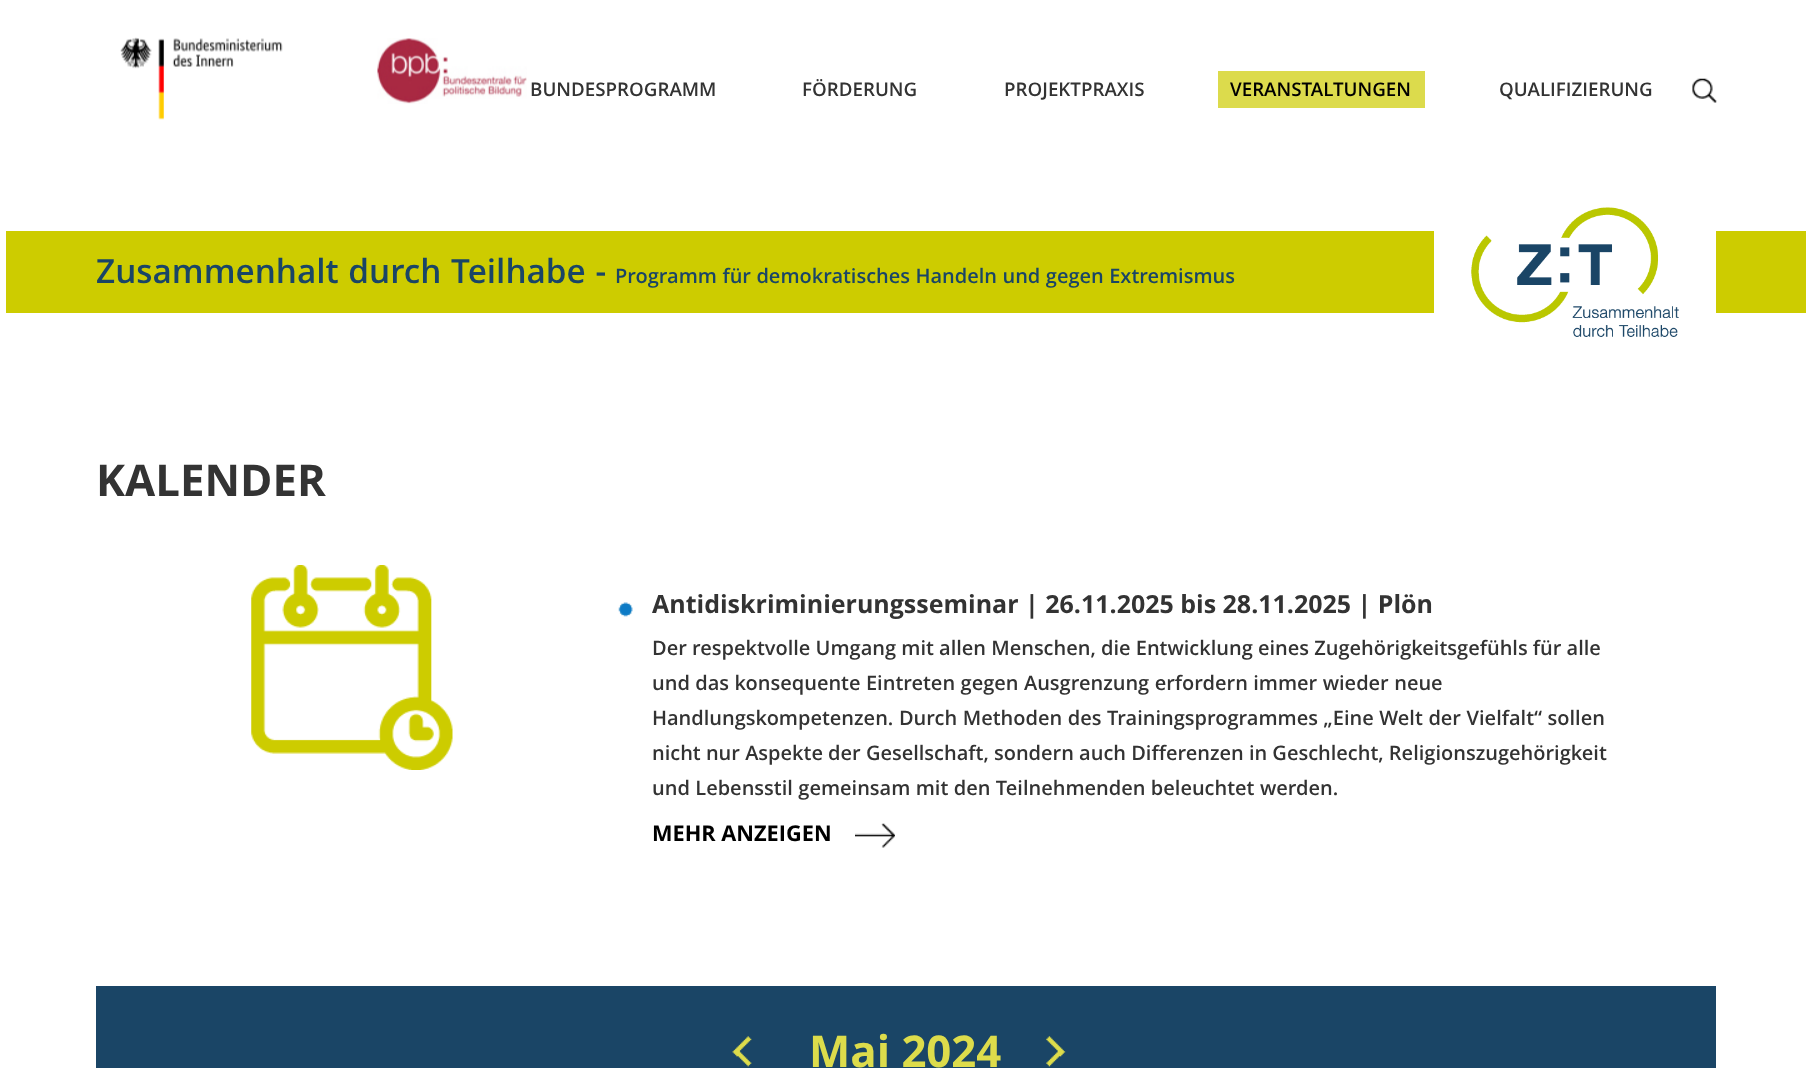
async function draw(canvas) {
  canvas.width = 1811
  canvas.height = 1068
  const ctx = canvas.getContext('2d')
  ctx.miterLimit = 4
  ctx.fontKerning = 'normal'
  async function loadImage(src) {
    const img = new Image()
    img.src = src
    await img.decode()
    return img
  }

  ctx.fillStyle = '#fff'
  ctx.fillRect(0, 0, 1811, 1068)
  ctx.drawImage(await loadImage('image0.png'), 120, 37, 163, 83)
  ctx.drawImage(await loadImage('image1.png'), 377, 38, 150, 66)
  ctx.font = '600 18.75px Open Sans'
  ctx.fillStyle = '#333'
  ctx.fillText('BUNDESPROGRAMM', 530, 96)
  ctx.fillText('FÖRDERUNG', 802, 96)
  ctx.fillText('PROJEKTPRAXIS', 1004, 96)
  ctx.fillStyle = '#dcdb4c'
  ctx.fillRect(1218, 71, 207, 37)
  ctx.fillStyle = '#000'
  ctx.fillText('VERANSTALTUNGEN', 1230, 96)
  ctx.fillStyle = '#333'
  ctx.fillText('QUALIFIZIERUNG', 1499, 96)
  ctx.drawImage(await loadImage('image2.png'), 1692, 78, 25, 25)
  ctx.fillStyle = '#cdcc00'
  ctx.fillRect(6, 231, 1800, 82)
  ctx.wordSpacing = '1px'
  ctx.font = '600 33.3px Open Sans'
  ctx.fillStyle = '#1a4566'
  ctx.fillText('Zusammenhalt durch Teilhabe -', 96, 283)
  ctx.wordSpacing = '0.25px'
  ctx.font = '600 20px Open Sans'
  ctx.fillText('Programm für demokratisches Handeln und gegen Extremismus', 615, 283)
  ctx.fillStyle = '#fff'
  ctx.fillRect(1434, 231, 282, 82)
  ctx.drawImage(await loadImage('image3.png'), 1471, 207, 208, 130)
  ctx.wordSpacing = '0px'
  ctx.font = 'bold 43.75px Open Sans'
  ctx.fillStyle = '#333'
  ctx.fillText('KALENDER', 96, 496)
  ctx.drawImage(await loadImage('image4.png'), 251, 565, 202, 205)
  ctx.drawImage(await loadImage('image5.png'), 618, 602, 15, 15)
  ctx.font = 'bold 25px Open Sans'
  ctx.fillText('Antidiskriminierungsseminar | 26.11.2025 bis 28.11.2025 | Plön', 652, 613)
  ctx.font = '600 20px Open Sans'
  ctx.fillText('Der respektvolle Umgang mit allen Menschen, die Entwicklung eines Zugehörigkeitsgefühls für alle', 652, 655)
  ctx.wordSpacing = '0.25px'
  ctx.fillText('und das konsequente Eintreten gegen Ausgrenzung erfordern immer wieder neue', 652, 690)
  ctx.wordSpacing = '0.4px'
  ctx.fillText('Handlungskompetenzen. Durch Methoden des Trainingsprogrammes „Eine Welt der Vielfalt“ sollen', 652, 725)
  ctx.wordSpacing = '0px'
  ctx.fillText('nicht nur Aspekte der Gesellschaft, sondern auch Differenzen in Geschlecht, Religionszugehörigkeit', 652, 760)
  ctx.wordSpacing = '0.25px'
  ctx.fillText('und Lebensstil gemeinsam mit den Teilnehmenden beleuchtet werden.', 652, 795)
  ctx.wordSpacing = '0px'
  ctx.font = 'bold 21.75px Open Sans'
  ctx.fillStyle = '#000'
  ctx.fillText('MEHR ANZEIGEN', 652, 841)
  ctx.drawImage(await loadImage('image6.png'), 855, 823, 40, 25)
  ctx.fillStyle = '#1a4566'
  ctx.fillRect(96, 986, 1620, 82)
  ctx.drawImage(await loadImage('image7.png'), 732, 1036, 20, 31)
  ctx.font = 'bold 43.75px Open Sans'
  ctx.fillStyle = '#dddc4b'
  ctx.fillText('Mai 2024', 809, 1067)
  ctx.drawImage(await loadImage('image8.png'), 1046, 1036, 20, 31)
}

draw(document.querySelector('canvas'))
